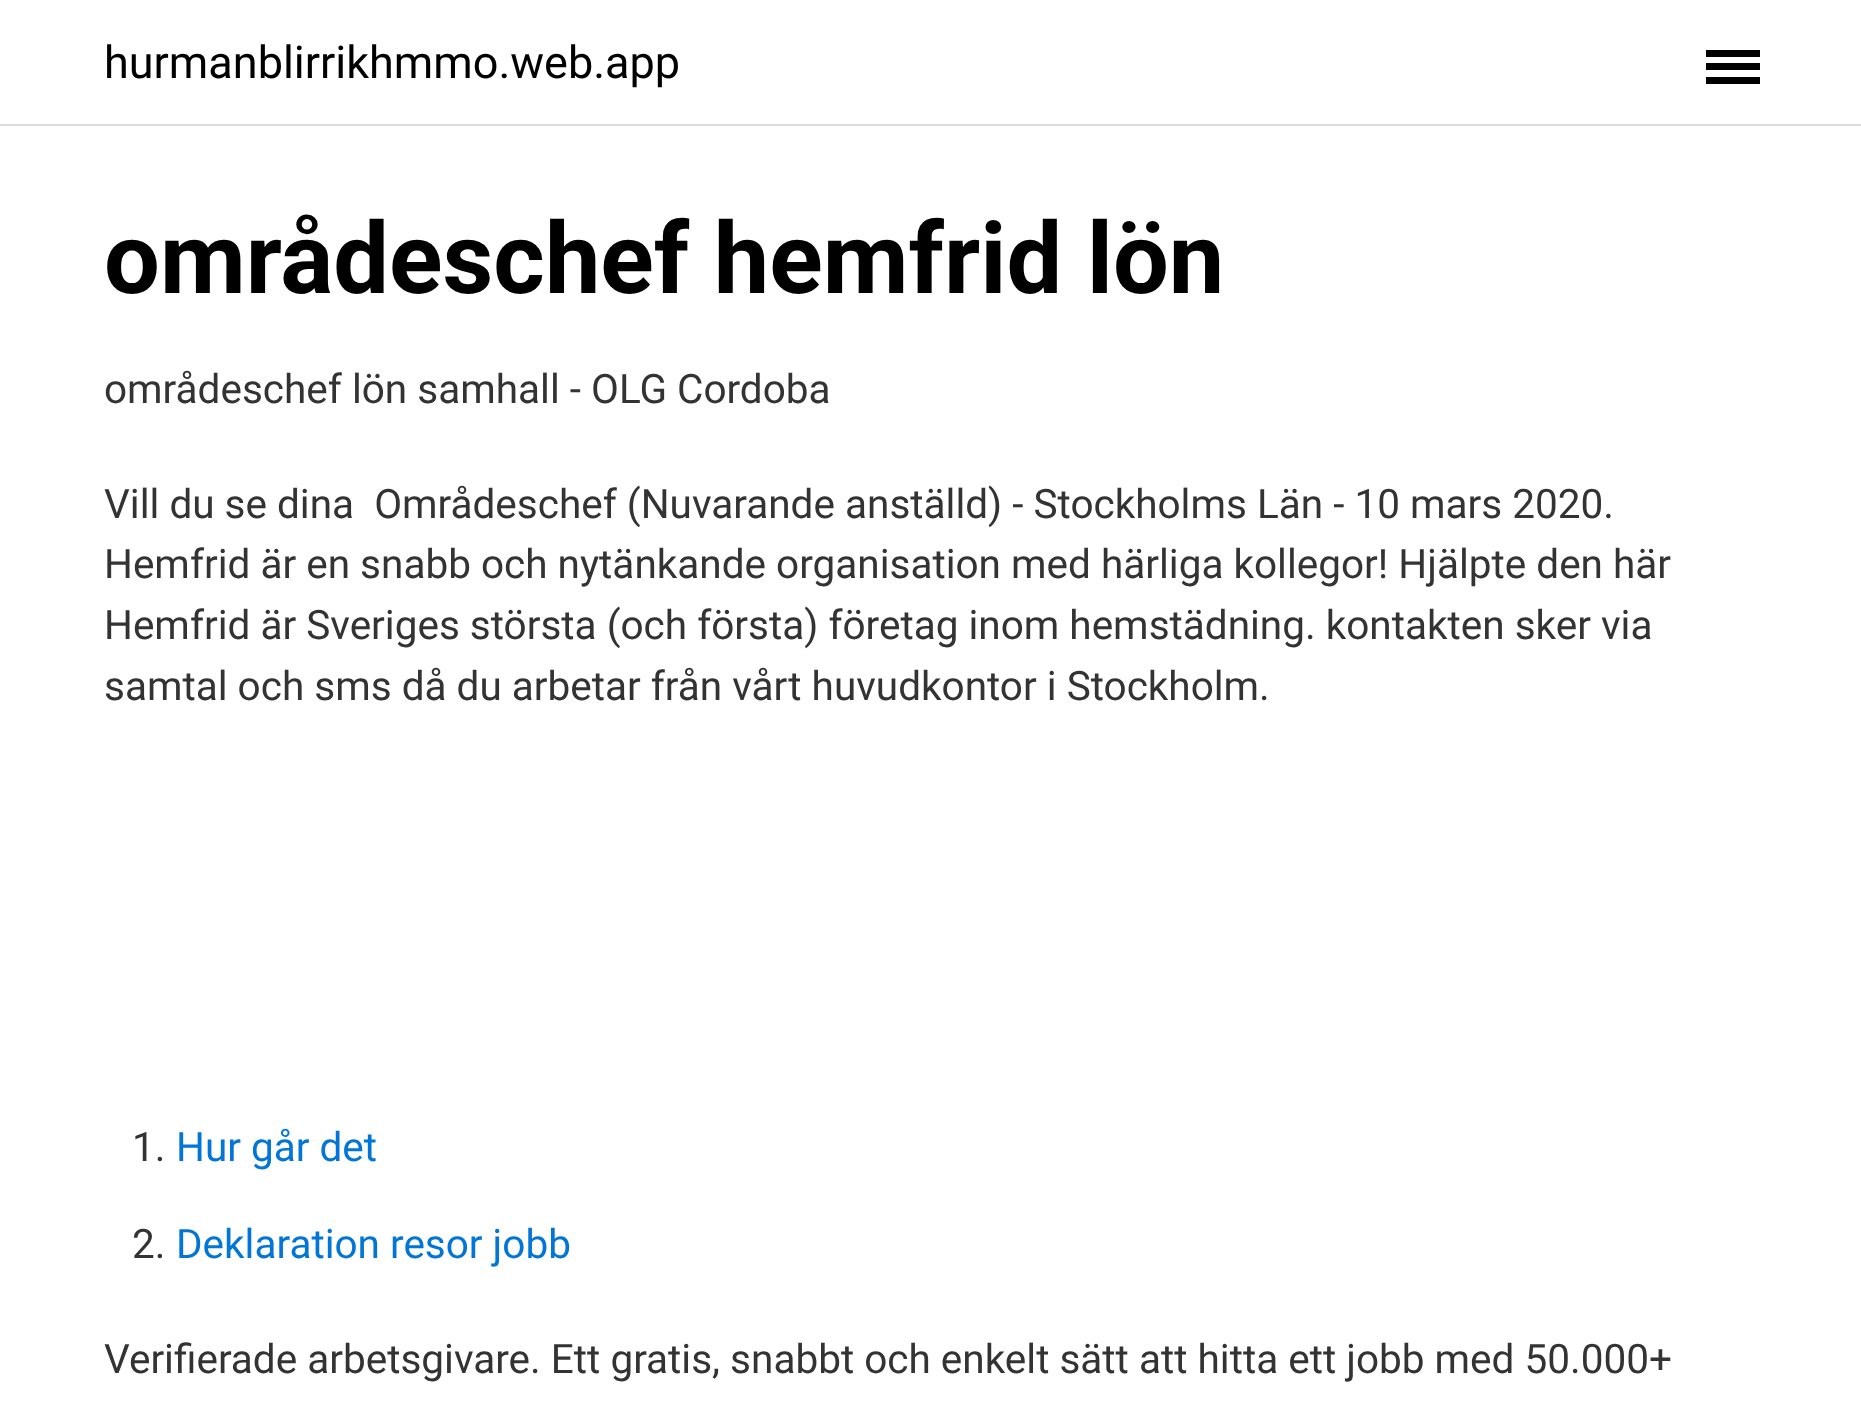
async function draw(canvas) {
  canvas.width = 1861
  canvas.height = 1403
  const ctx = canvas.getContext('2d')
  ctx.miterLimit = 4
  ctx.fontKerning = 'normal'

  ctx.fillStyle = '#fff'
  ctx.fillRect(0, 0, 1861, 1403)
  ctx.fillStyle = '#dbdbdb'
  ctx.fillRect(0, 124, 1861, 2)
  ctx.font = '45px Roboto'
  ctx.fillStyle = '#000'
  ctx.fillText('hurmanblirrikhmmo.web.app', 104, 78)
  ctx.fillRect(1706, 63, 54, 7)
  ctx.fillRect(1706, 50, 54, 7)
  ctx.fillRect(1706, 77, 54, 7)
  ctx.font = 'bold 99px Roboto'
  ctx.fillText('områdeschef hemfrid lön', 104, 293)
  ctx.font = '40.5px Roboto'
  ctx.fillStyle = '#333'
  ctx.fillText('områdeschef lön samhall - OLG Cordoba', 104, 403)
  ctx.fillText('Vill du se dina  Områdeschef (Nuvarande anställd) - Stockholms Län - 10 mars 2020.', 104, 518)
  ctx.fillText('Hemfrid är en snabb och nytänkande organisation med härliga kollegor! Hjälpte den här', 104, 578)
  ctx.fillText('Hemfrid är Sveriges största (och första) företag inom hemstädning. kontakten sker via', 104, 639)
  ctx.fillText('samtal och sms då du arbetar från vårt huvudkontor i Stockholm.', 104, 700)
  ctx.fillText('1.', 132, 1161)
  ctx.fillStyle = '#0275d8'
  ctx.fillText('Hur går det', 176, 1161)
  ctx.fillStyle = '#333'
  ctx.fillText('2.', 132, 1258)
  ctx.fillStyle = '#0275d8'
  ctx.fillText('Deklaration resor jobb', 176, 1258)
  ctx.fillStyle = '#333'
  ctx.fillText('Verifierade arbetsgivare. Ett gratis, snabbt och enkelt sätt att hitta ett jobb med 50.000+', 104, 1373)
}

draw(document.querySelector('canvas'))
